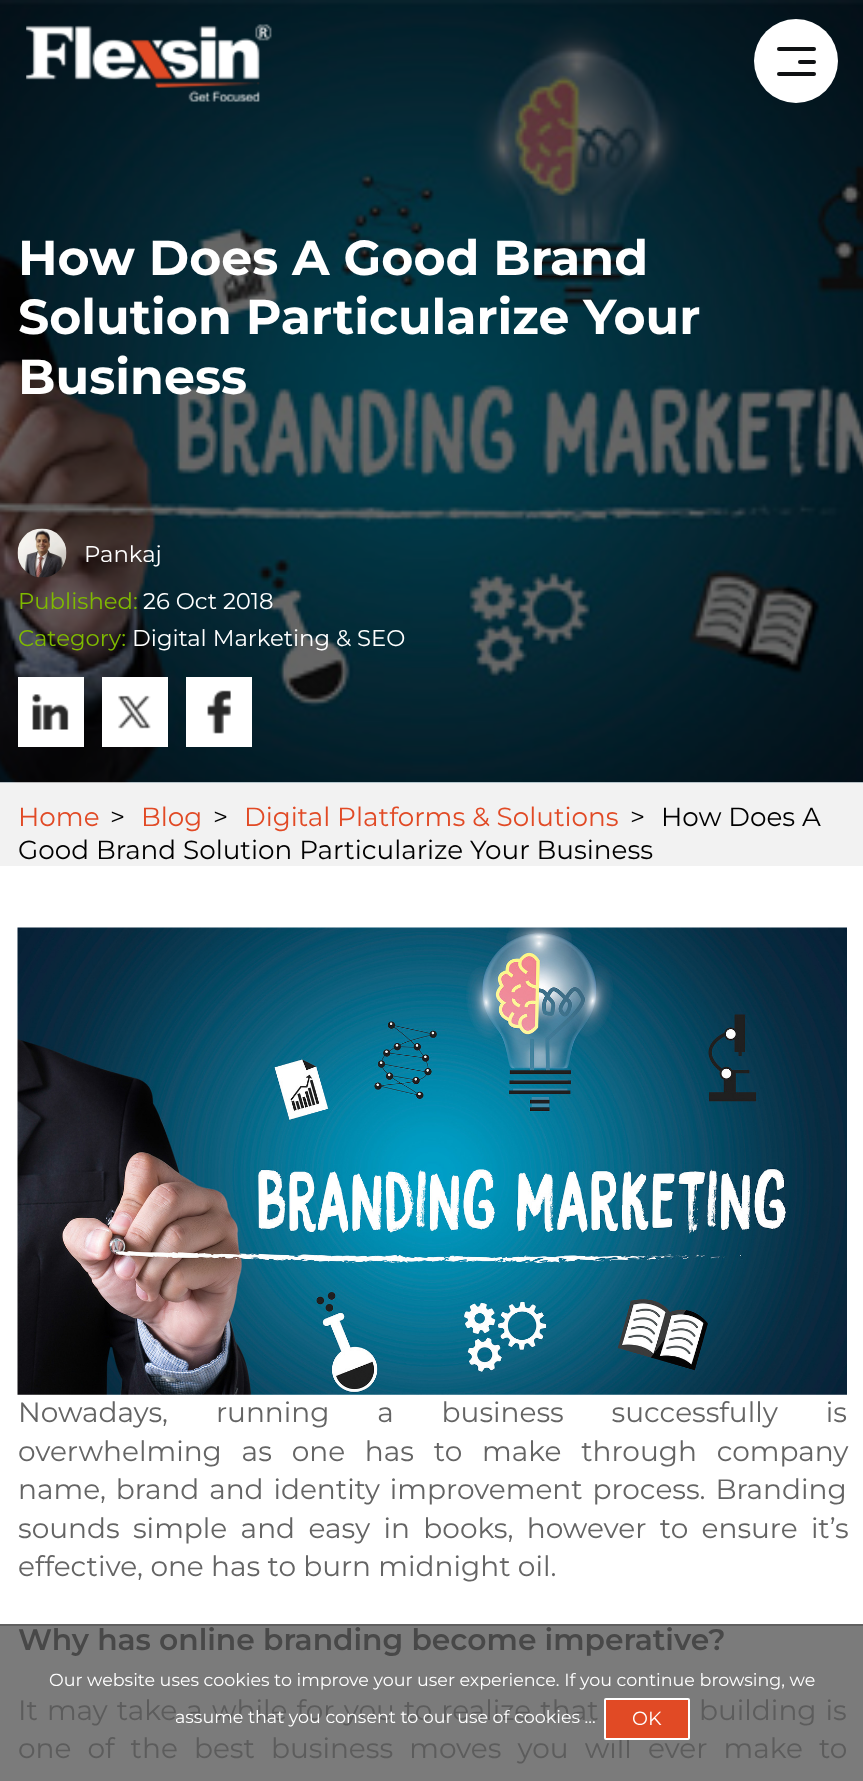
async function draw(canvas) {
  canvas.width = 863
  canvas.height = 1781
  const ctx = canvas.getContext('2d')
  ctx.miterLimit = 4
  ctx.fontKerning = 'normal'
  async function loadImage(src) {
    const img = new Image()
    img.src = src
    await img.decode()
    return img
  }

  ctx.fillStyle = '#fff'
  ctx.fillRect(0, 0, 863, 1781)
  ctx.fillStyle = '#7b7b7b'
  ctx.fillRect(0, 1626, 863, 155)
  ctx.fillStyle = '#f2f2f2'
  ctx.fillRect(0, 782, 863, 84)
  ctx.drawImage(await loadImage('image1.png'), 0, 0, 863, 783)
  ctx.drawImage(await loadImage('image0.png'), 26, 24, 246, 78)
  ctx.fillStyle = '#fff'
  ctx.beginPath()
  ctx.arc(796, 61, 42, 0, 2 * Math.PI)
  ctx.fill()
  ctx.fillStyle = '#0f1113'
  ctx.beginPath()
  ctx.roundRect(777, 47, 39, 4, 2)
  ctx.fill()
  ctx.beginPath()
  ctx.roundRect(798, 60, 18, 4, 2)
  ctx.fill()
  ctx.beginPath()
  ctx.roundRect(777, 72, 39, 4, 2)
  ctx.fill()
  ctx.font = 'bold 49px Montserrat'
  ctx.fillStyle = '#fff'
  ctx.fillText('How Does A Good Brand', 18, 275)
  ctx.fillText('Solution Particularize Your', 18, 334)
  ctx.fillText('Business', 18, 394)
  ctx.drawImage(await loadImage('image2.png'), 17, 528, 50, 50)
  ctx.font = '22.75px Montserrat'
  ctx.fillText('Pankaj', 84, 562)
  ctx.fillStyle = '#7fba00'
  ctx.fillText('Published:', 18, 609)
  ctx.fillStyle = '#fff'
  ctx.fillText('26 Oct 2018', 143, 609)
  ctx.fillStyle = '#7fba00'
  ctx.fillText('Category:', 18, 646)
  ctx.fillStyle = '#fff'
  ctx.fillText('Digital Marketing & SEO', 132, 646)
  ctx.fillRect(18, 677, 66, 70)
  ctx.drawImage(await loadImage('image3.png'), 32, 694, 37, 36)
  ctx.fillRect(102, 677, 66, 70)
  ctx.drawImage(await loadImage('image4.png'), 118, 695, 33, 34)
  ctx.fillRect(186, 677, 66, 70)
  ctx.drawImage(await loadImage('image5.png'), 207, 690, 24, 44)
  ctx.font = '26.25px Montserrat'
  ctx.fillStyle = '#e14a25'
  ctx.fillText('Home', 18, 826)
  ctx.fillStyle = '#000'
  ctx.fillText('>', 110, 826)
  ctx.fillStyle = '#e14a25'
  ctx.fillText('Blog', 141, 826)
  ctx.fillStyle = '#000'
  ctx.fillText('>', 213, 826)
  ctx.fillStyle = '#e14a25'
  ctx.fillText('Digital Platforms & Solutions', 244, 826)
  ctx.fillStyle = '#000'
  ctx.fillText('>', 630, 826)
  ctx.fillText('How Does A', 661, 826)
  ctx.fillText('Good Brand Solution Particularize Your Business', 18, 859)
  ctx.drawImage(await loadImage('image6.png'), 17, 927, 830, 468)
  ctx.wordSpacing = '40.5px'
  ctx.font = '28px Montserrat'
  ctx.fillStyle = '#646464'
  ctx.fillText('Nowadays, running a business successfully is', 18, 1422)
  ctx.wordSpacing = '12.5px'
  ctx.fillText('overwhelming as one has to make through company', 18, 1461)
  ctx.wordSpacing = '2.5px'
  ctx.fillText('name, brand and identity improvement process. Branding', 18, 1499)
  ctx.wordSpacing = '6px'
  ctx.fillText('sounds simple and easy in books, however to ensure it’s', 18, 1538)
  ctx.wordSpacing = '0px'
  ctx.fillText('effective, one has to burn midnight oil.', 18, 1576)
  ctx.font = '600 29.75px Montserrat'
  ctx.fillStyle = '#484848'
  ctx.fillText('Why has online branding become imperative?', 18, 1650)
  ctx.wordSpacing = '1.75px'
  ctx.font = '28px Montserrat'
  ctx.fillStyle = '#5c5c5c'
  ctx.fillText('It may take a while for you to realize that', 18, 1720)
  ctx.fillText('building is', 699, 1720)
  ctx.wordSpacing = '8.75px'
  ctx.fillText('one of the best business moves you will ever make to', 18, 1758)
  ctx.fillStyle = '#616161'
  ctx.fillRect(0, 1624, 863, 2)
  ctx.wordSpacing = '0px'
  ctx.font = '17.5px Montserrat'
  ctx.fillStyle = '#fff'
  ctx.fillText('Our website uses cookies to improve your user experience. If you continue browsing, we', 49, 1686)
  ctx.fillText('assume that you consent to our use of cookies ...', 175, 1723)
  ctx.fillStyle = '#e14a25'
  ctx.beginPath()
  ctx.roundRect(605, 1699, 84, 40, 1)
  ctx.fill()
  ctx.strokeStyle = '#fff'
  ctx.lineWidth = 2
  ctx.stroke()
  ctx.font = '19px Montserrat'
  ctx.fillStyle = '#fff'
  ctx.fillText('OK', 632, 1725)
}

draw(document.querySelector('canvas'))
